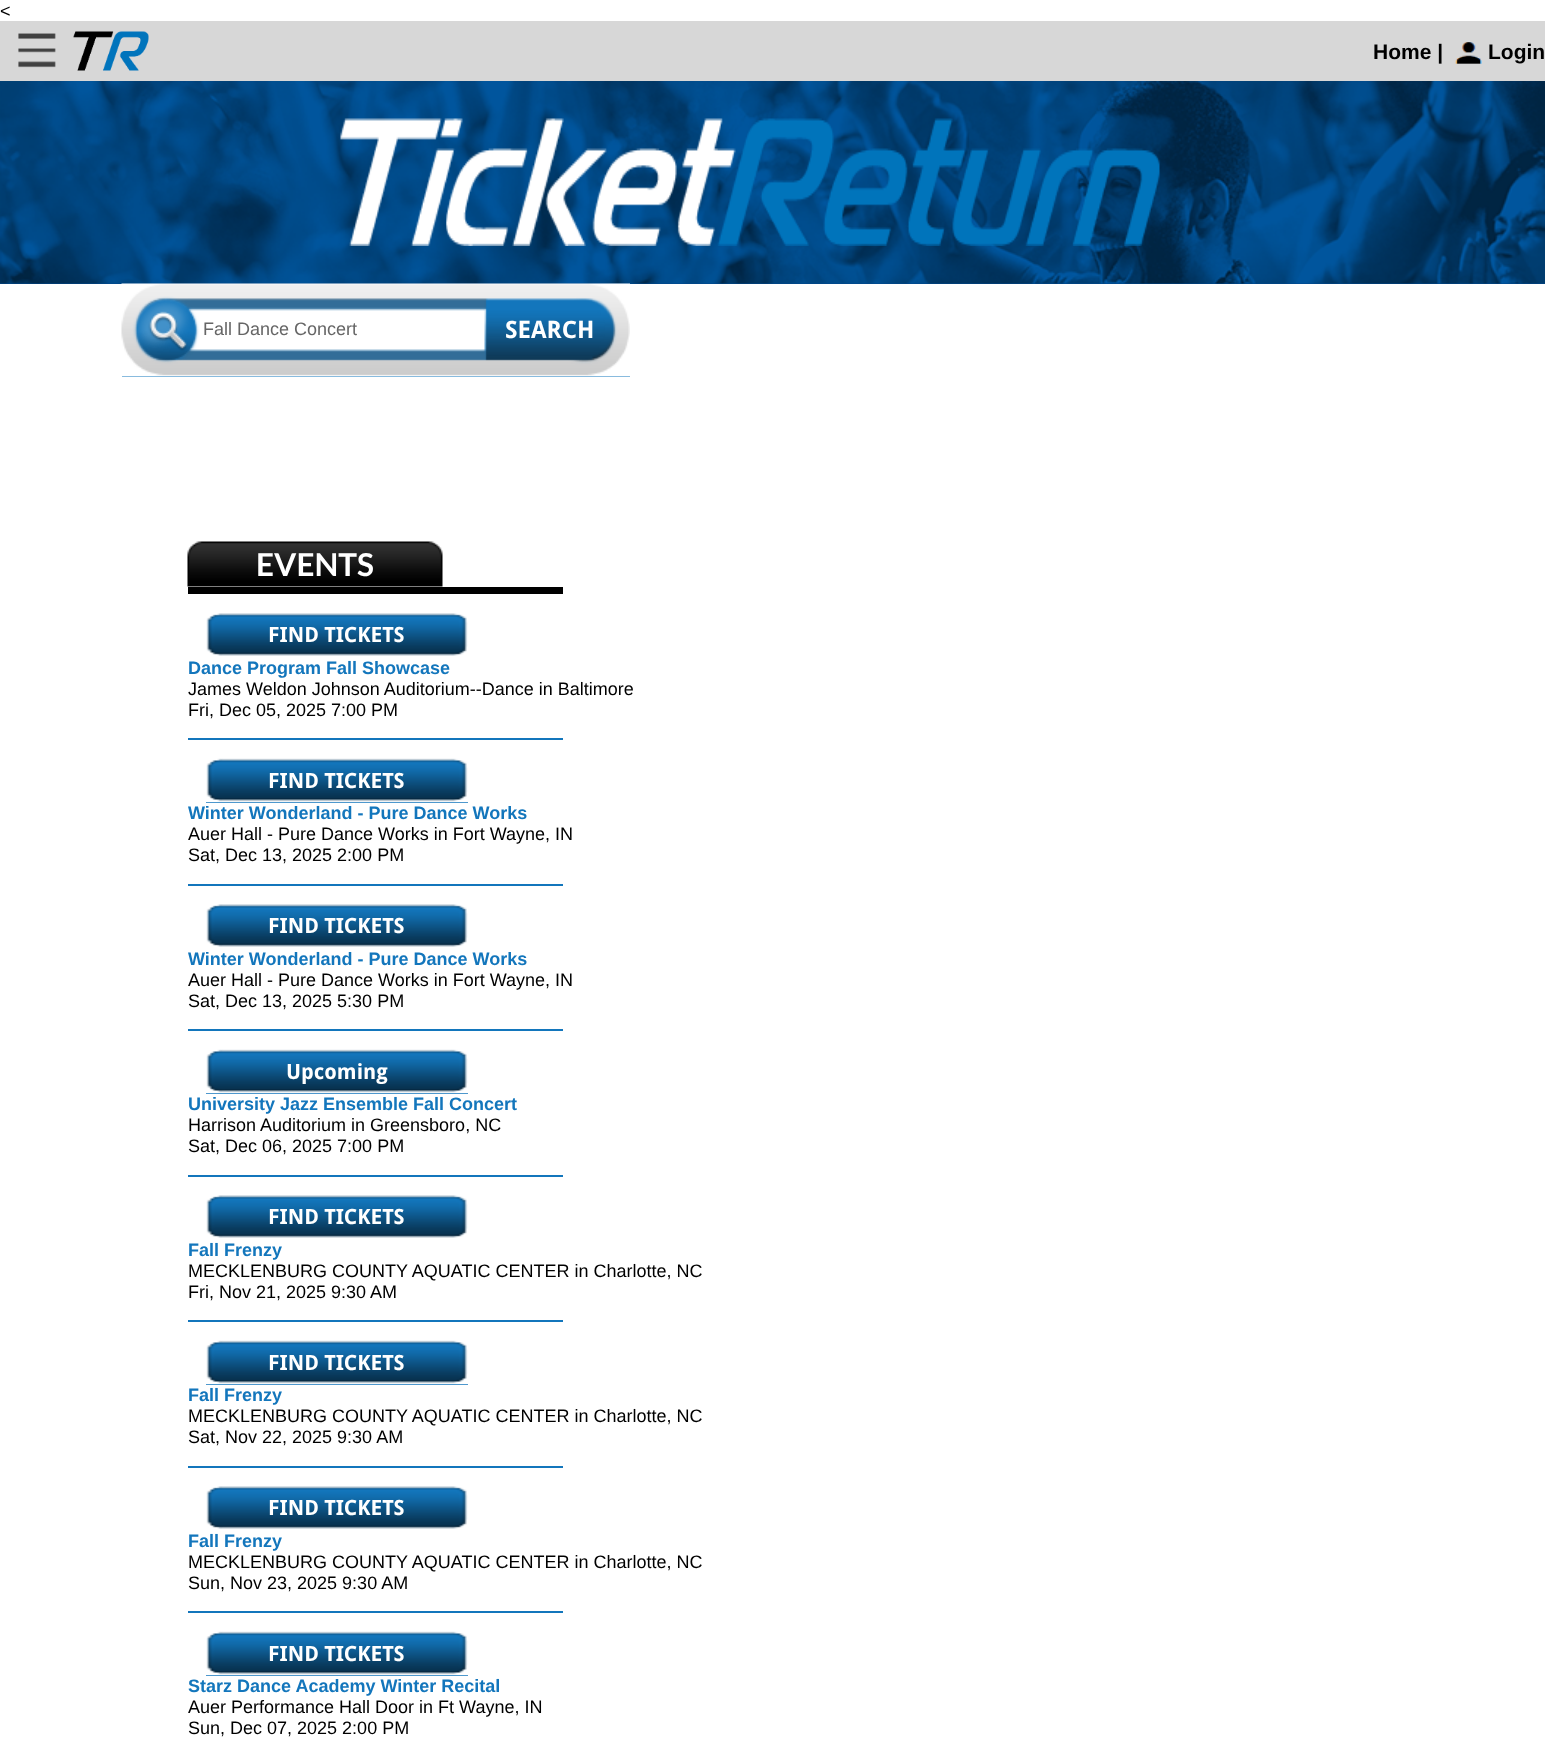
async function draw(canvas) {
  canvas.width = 1545
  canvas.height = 1738
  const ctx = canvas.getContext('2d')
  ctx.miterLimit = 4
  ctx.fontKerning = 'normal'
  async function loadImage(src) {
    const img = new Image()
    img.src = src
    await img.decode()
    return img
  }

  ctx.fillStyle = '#fff'
  ctx.fillRect(0, 0, 1545, 1738)
  ctx.font = '18px Liberation Sans'
  ctx.fillStyle = '#000'
  ctx.fillText('<', 0, 17)
  ctx.fillStyle = '#d7d7d7'
  ctx.fillRect(0, 21, 1545, 60)
  ctx.drawImage(await loadImage('image0.png'), 18, 33, 38, 35)
  ctx.drawImage(await loadImage('image1.png'), 73, 31, 76, 40)
  ctx.font = 'bold 21px Liberation Sans'
  ctx.fillStyle = '#000'
  ctx.fillText('Home |', 1373, 59)
  ctx.drawImage(await loadImage('image2.png'), 1455, 42, 27, 22)
  ctx.fillText('Login', 1488, 59)
  ctx.fillStyle = '#00468b'
  ctx.fillRect(0, 81, 1545, 203)
  ctx.drawImage(await loadImage('image3.png'), 0, 81, 1545, 203)
  ctx.drawImage(await loadImage('image4.png'), 340, 118, 820, 128)
  ctx.fillStyle = '#1376bc'
  ctx.fillRect(122, 296, 508, 81)
  ctx.drawImage(await loadImage('image5.png'), 121, 283, 509, 94)
  ctx.font = '18px Liberation Sans'
  ctx.fillStyle = '#666'
  ctx.fillText('Fall Dance Concert', 203, 335)
  ctx.font = 'bold 24px Droid Sans'
  ctx.fillStyle = '#fff'
  ctx.fillText('SEARCH', 505, 338)
  ctx.fillStyle = '#000'
  ctx.fillRect(188, 587, 375, 7)
  ctx.drawImage(await loadImage('image6.png'), 187, 541, 256, 46)
  ctx.font = 'bold 31.5px Lato'
  ctx.fillStyle = '#fff'
  ctx.fillText('EVENTS', 256, 576)
  ctx.fillStyle = '#1376bc'
  ctx.fillRect(206, 613, 262, 43)
  ctx.drawImage(await loadImage('image7.png'), 206, 612, 262, 45)
  ctx.font = 'bold 21px Droid Sans'
  ctx.fillStyle = '#fff'
  ctx.fillText('FIND TICKETS', 268, 642)
  ctx.font = 'bold 18px Liberation Sans'
  ctx.fillStyle = '#1376bc'
  ctx.fillText('Dance Program Fall Showcase', 188, 674)
  ctx.font = '18px Liberation Sans'
  ctx.fillStyle = '#000'
  ctx.fillText('James Weldon Johnson Auditorium--Dance in Baltimore', 188, 695)
  ctx.fillText('Fri, Dec 05, 2025 7:00 PM', 188, 716)
  ctx.fillStyle = '#1376bc'
  ctx.fillRect(188, 738, 375, 2)
  ctx.fillRect(206, 758, 262, 45)
  ctx.drawImage(await loadImage('image8.png'), 206, 758, 262, 45)
  ctx.font = 'bold 21px Droid Sans'
  ctx.fillStyle = '#fff'
  ctx.fillText('FIND TICKETS', 268, 788)
  ctx.font = 'bold 18px Liberation Sans'
  ctx.fillStyle = '#1376bc'
  ctx.fillText('Winter Wonderland - Pure Dance Works', 188, 819)
  ctx.font = '18px Liberation Sans'
  ctx.fillStyle = '#000'
  ctx.fillText('Auer Hall - Pure Dance Works in Fort Wayne, IN', 188, 840)
  ctx.fillText('Sat, Dec 13, 2025 2:00 PM', 188, 861)
  ctx.fillStyle = '#1376bc'
  ctx.fillRect(188, 884, 375, 2)
  ctx.fillRect(206, 904, 262, 43)
  ctx.drawImage(await loadImage('image7.png'), 206, 903, 262, 45)
  ctx.font = 'bold 21px Droid Sans'
  ctx.fillStyle = '#fff'
  ctx.fillText('FIND TICKETS', 268, 933)
  ctx.font = 'bold 18px Liberation Sans'
  ctx.fillStyle = '#1376bc'
  ctx.fillText('Winter Wonderland - Pure Dance Works', 188, 965)
  ctx.font = '18px Liberation Sans'
  ctx.fillStyle = '#000'
  ctx.fillText('Auer Hall - Pure Dance Works in Fort Wayne, IN', 188, 986)
  ctx.fillText('Sat, Dec 13, 2025 5:30 PM', 188, 1007)
  ctx.fillStyle = '#1376bc'
  ctx.fillRect(188, 1029, 375, 2)
  ctx.fillRect(206, 1049, 262, 45)
  ctx.drawImage(await loadImage('image8.png'), 206, 1049, 262, 45)
  ctx.font = 'bold 21px Droid Sans'
  ctx.fillStyle = '#fff'
  ctx.fillText('Upcoming', 286, 1079)
  ctx.font = 'bold 18px Liberation Sans'
  ctx.fillStyle = '#1376bc'
  ctx.fillText('University Jazz Ensemble Fall Concert', 188, 1110)
  ctx.font = '18px Liberation Sans'
  ctx.fillStyle = '#000'
  ctx.fillText('Harrison Auditorium in Greensboro, NC', 188, 1131)
  ctx.fillText('Sat, Dec 06, 2025 7:00 PM', 188, 1152)
  ctx.fillStyle = '#1376bc'
  ctx.fillRect(188, 1175, 375, 2)
  ctx.fillRect(206, 1195, 262, 43)
  ctx.drawImage(await loadImage('image7.png'), 206, 1194, 262, 45)
  ctx.font = 'bold 21px Droid Sans'
  ctx.fillStyle = '#fff'
  ctx.fillText('FIND TICKETS', 268, 1224)
  ctx.font = 'bold 18px Liberation Sans'
  ctx.fillStyle = '#1376bc'
  ctx.fillText('Fall Frenzy', 188, 1256)
  ctx.font = '18px Liberation Sans'
  ctx.fillStyle = '#000'
  ctx.fillText('MECKLENBURG COUNTY AQUATIC CENTER in Charlotte, NC', 188, 1277)
  ctx.fillText('Fri, Nov 21, 2025 9:30 AM', 188, 1298)
  ctx.fillStyle = '#1376bc'
  ctx.fillRect(188, 1320, 375, 2)
  ctx.fillRect(206, 1340, 262, 45)
  ctx.drawImage(await loadImage('image8.png'), 206, 1340, 262, 45)
  ctx.font = 'bold 21px Droid Sans'
  ctx.fillStyle = '#fff'
  ctx.fillText('FIND TICKETS', 268, 1370)
  ctx.font = 'bold 18px Liberation Sans'
  ctx.fillStyle = '#1376bc'
  ctx.fillText('Fall Frenzy', 188, 1401)
  ctx.font = '18px Liberation Sans'
  ctx.fillStyle = '#000'
  ctx.fillText('MECKLENBURG COUNTY AQUATIC CENTER in Charlotte, NC', 188, 1422)
  ctx.fillText('Sat, Nov 22, 2025 9:30 AM', 188, 1443)
  ctx.fillStyle = '#1376bc'
  ctx.fillRect(188, 1466, 375, 2)
  ctx.fillRect(206, 1486, 262, 43)
  ctx.drawImage(await loadImage('image7.png'), 206, 1485, 262, 45)
  ctx.font = 'bold 21px Droid Sans'
  ctx.fillStyle = '#fff'
  ctx.fillText('FIND TICKETS', 268, 1515)
  ctx.font = 'bold 18px Liberation Sans'
  ctx.fillStyle = '#1376bc'
  ctx.fillText('Fall Frenzy', 188, 1547)
  ctx.font = '18px Liberation Sans'
  ctx.fillStyle = '#000'
  ctx.fillText('MECKLENBURG COUNTY AQUATIC CENTER in Charlotte, NC', 188, 1568)
  ctx.fillText('Sun, Nov 23, 2025 9:30 AM', 188, 1589)
  ctx.fillStyle = '#1376bc'
  ctx.fillRect(188, 1611, 375, 2)
  ctx.fillRect(206, 1631, 262, 45)
  ctx.drawImage(await loadImage('image8.png'), 206, 1631, 262, 45)
  ctx.font = 'bold 21px Droid Sans'
  ctx.fillStyle = '#fff'
  ctx.fillText('FIND TICKETS', 268, 1661)
  ctx.font = 'bold 18px Liberation Sans'
  ctx.fillStyle = '#1376bc'
  ctx.fillText('Starz Dance Academy Winter Recital', 188, 1692)
  ctx.font = '18px Liberation Sans'
  ctx.fillStyle = '#000'
  ctx.fillText('Auer Performance Hall Door in Ft Wayne, IN', 188, 1713)
  ctx.fillText('Sun, Dec 07, 2025 2:00 PM', 188, 1734)
}

draw(document.querySelector('canvas'))
